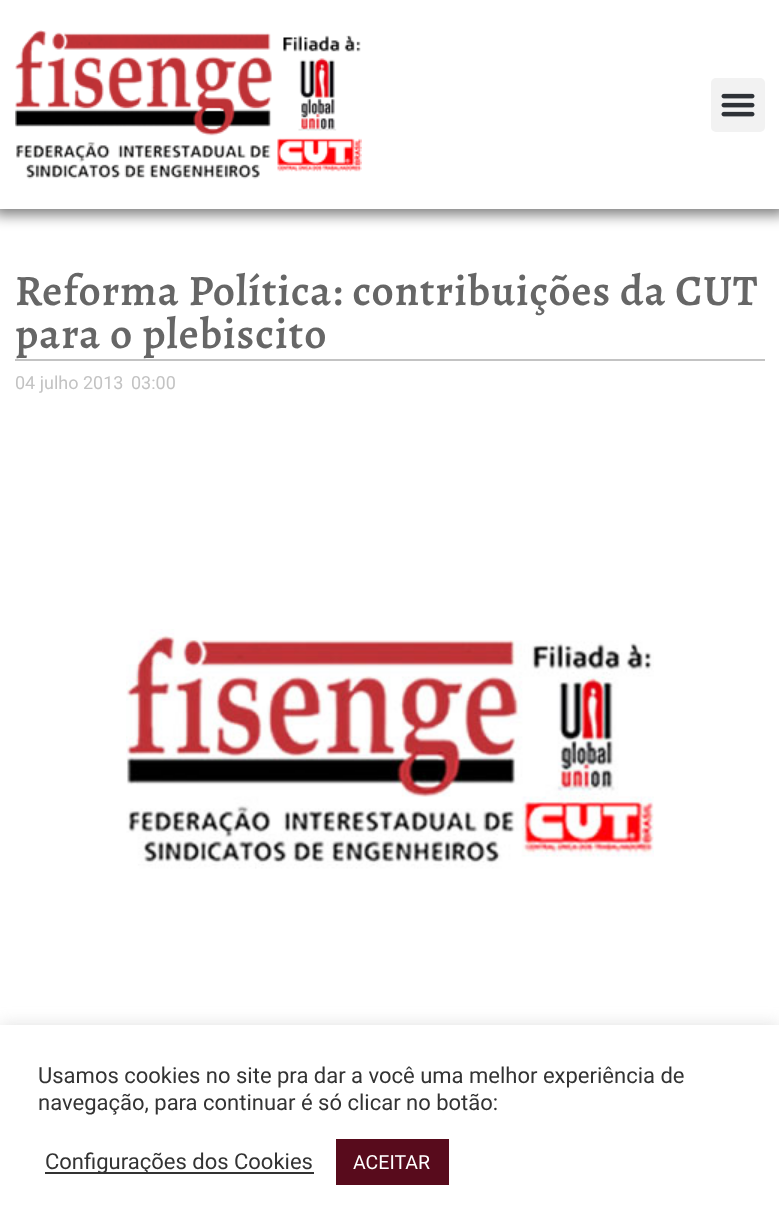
async function draw(canvas) {
  canvas.width = 779
  canvas.height = 1230
  const ctx = canvas.getContext('2d')
  ctx.miterLimit = 4
  ctx.fontKerning = 'normal'
  async function loadImage(src) {
    const img = new Image()
    img.src = src
    await img.decode()
    return img
  }

  ctx.fillStyle = '#fff'
  ctx.fillRect(0, 0, 779, 1230)
  ctx.fillStyle = '#00000080'
  ctx.filter = 'blur(7px)'
  ctx.beginPath()
  ctx.rect(-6, -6, 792, 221)
  ctx.fill()
  ctx.filter = 'none'
  ctx.fillStyle = '#fff'
  ctx.fillRect(0, 0, 779, 209)
  ctx.drawImage(await loadImage('image0.png'), 15, 30, 347, 149)
  ctx.fillStyle = '#f2f2f2'
  ctx.beginPath()
  ctx.roundRect(711, 78, 54, 54, 5)
  ctx.fill()
  ctx.drawImage(await loadImage('image1.png'), 721, 93, 34, 24)
  ctx.letterSpacing = '1.05px'
  ctx.font = '600 43.5px Alegreya'
  ctx.fillStyle = '#666'
  ctx.fillText('Reforma Política: contribuições da CUT', 15, 305)
  ctx.fillText('para o plebiscito', 15, 348)
  ctx.fillStyle = '#c3c3c3'
  ctx.fillRect(15, 359, 750, 2)
  ctx.letterSpacing = '0px'
  ctx.font = '18px Roboto'
  ctx.fillText('04 julho 2013', 15, 389)
  ctx.fillText('03:00', 131, 389)
  ctx.drawImage(await loadImage('image2.png'), 126, 629, 528, 240)
  ctx.fillStyle = '#acabab4d'
  ctx.filter = 'blur(7.5px)'
  ctx.beginPath()
  ctx.rect(0, 1023, 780, 206)
  ctx.fill()
  ctx.filter = 'none'
  ctx.fillStyle = '#fff'
  ctx.fillRect(0, 1025, 779, 205)
  ctx.font = '22px Roboto'
  ctx.fillStyle = '#333'
  ctx.fillText('Usamos cookies no site pra dar a você uma melhor experiência de', 38, 1083)
  ctx.fillText('navegação, para continuar é só clicar no botão:', 38, 1110)
  ctx.fillRect(45, 1172, 269, 2)
  ctx.fillText('Configurações dos Cookies', 45, 1169)
  ctx.fillStyle = '#580b1c'
  ctx.fillRect(336, 1139, 113, 46)
  ctx.font = '19.5px Roboto'
  ctx.fillStyle = '#fff'
  ctx.fillText('ACEITAR', 353, 1169)
}

draw(document.querySelector('canvas'))
